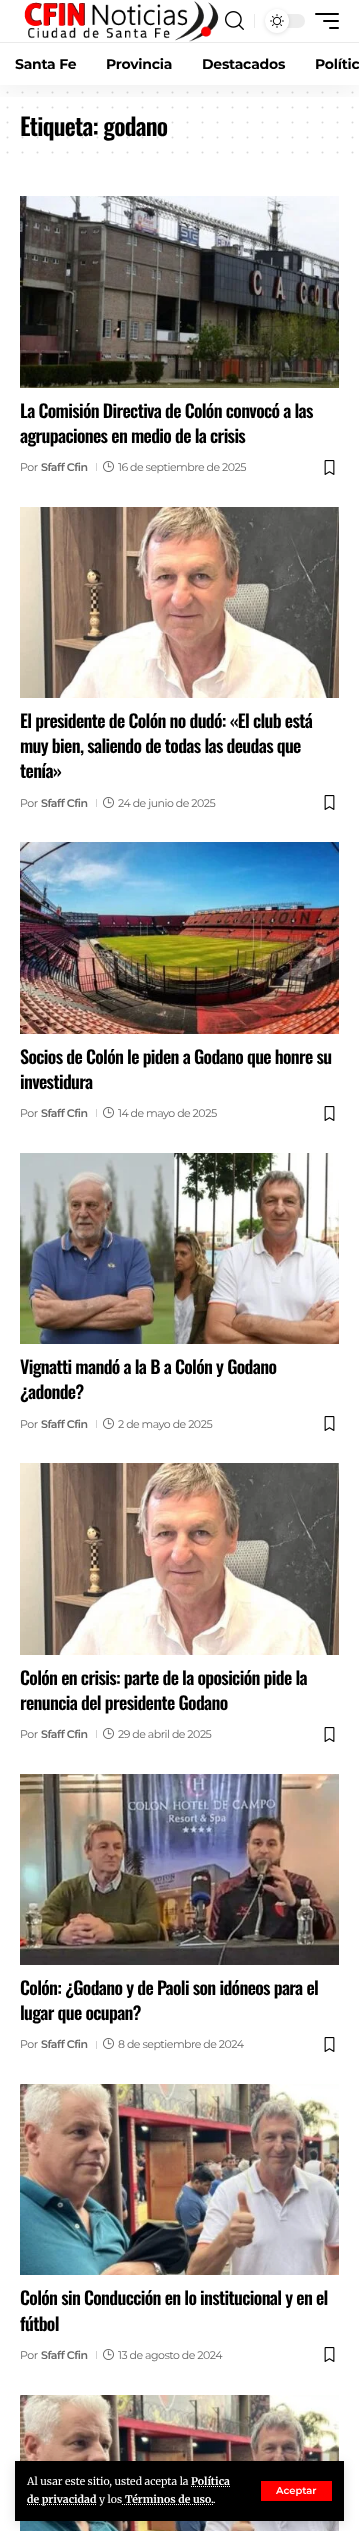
async function draw(canvas) {
  canvas.width = 359
  canvas.height = 2531
  const ctx = canvas.getContext('2d')
  ctx.miterLimit = 4
  ctx.fontKerning = 'normal'
  async function loadImage(src) {
    const img = new Image()
    img.src = src
    await img.decode()
    return img
  }

  ctx.fillStyle = '#fff'
  ctx.fillRect(0, 0, 359, 2531)
  ctx.beginPath()
  ctx.moveTo(7.5, 92.5)
  ctx.lineTo(352.7, 92.5)
  ctx.strokeStyle = '#d9d9d9'
  ctx.lineWidth = 2
  ctx.lineCap = 'round'
  ctx.setLineDash([0, 15])
  ctx.stroke()
  ctx.beginPath()
  ctx.moveTo(7.5, 107.5)
  ctx.lineTo(352.7, 107.5)
  ctx.stroke()
  ctx.letterSpacing = '-0.75px'
  ctx.font = '600 24px Oswald'
  ctx.fillStyle = '#000'
  ctx.fillText('Etiqueta: godano', 20, 136)
  ctx.beginPath()
  ctx.moveTo(7.5, 122.5)
  ctx.lineTo(352.7, 122.5)
  ctx.strokeStyle = '#00000026'
  ctx.stroke()
  ctx.save()
  ctx.beginPath()
  ctx.rect(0, 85, 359, 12)
  ctx.clip()
  ctx.fillStyle = '#00000012'
  ctx.filter = 'blur(15px)'
  ctx.beginPath()
  ctx.rect(0, 4, 359, 85)
  ctx.fill()
  ctx.filter = 'none'
  ctx.restore()
  ctx.drawImage(await loadImage('image0.png'), 24, 1, 195, 41)
  ctx.drawImage(await loadImage('image1.png'), 225, 11, 19, 19)
  ctx.fillStyle = '#eaeaea'
  ctx.fillRect(254, 14, 1, 14)
  ctx.fillStyle = '#ededed'
  ctx.beginPath()
  ctx.roundRect(265, 14, 40, 14, 7)
  ctx.fill()
  ctx.fillStyle = '#0000001f'
  ctx.filter = 'blur(2px)'
  ctx.beginPath()
  ctx.roundRect(265, 10, 24, 24, 12)
  ctx.fill()
  ctx.filter = 'none'
  ctx.fillStyle = '#fff'
  ctx.beginPath()
  ctx.arc(277, 21, 12, 0, 2 * Math.PI)
  ctx.fill()
  ctx.drawImage(await loadImage('image2.png'), 270, 14, 14, 14)
  ctx.fillStyle = '#000'
  ctx.beginPath()
  ctx.roundRect(315, 13, 24, 2, 1)
  ctx.fill()
  ctx.beginPath()
  ctx.roundRect(323, 20, 16, 2, 1)
  ctx.fill()
  ctx.beginPath()
  ctx.roundRect(329, 27, 10, 2, 1)
  ctx.fill()
  ctx.fillStyle = '#eaeaea'
  ctx.fillRect(0, 42, 359, 1)
  ctx.letterSpacing = '-0.25px'
  ctx.font = 'bold 14px Montserrat'
  ctx.fillStyle = '#000'
  ctx.fillText('Santa Fe', 15, 69)
  ctx.fillText('Provincia', 106, 69)
  ctx.fillText('Destacados', 202, 69)
  ctx.fillText('Polític', 315, 69)
  ctx.drawImage(await loadImage('image12.png'), 20, 2395, 319, 136)
  ctx.fillStyle = '#0000001f'
  ctx.filter = 'blur(6px)'
  ctx.beginPath()
  ctx.rect(15, 2464, 329, 60)
  ctx.fill()
  ctx.filter = 'none'
  ctx.fillStyle = '#000'
  ctx.fillRect(15, 2461, 329, 60)
  ctx.letterSpacing = '0px'
  ctx.font = '10.5px Merriweather'
  ctx.fillStyle = '#fff'
  ctx.fillText('Al usar este sitio, usted acepta la', 27, 2485)
  ctx.font = 'bold 10.5px Merriweather'
  ctx.fillText('Política', 191, 2485)
  ctx.beginPath()
  ctx.moveTo(191, 2486.5)
  ctx.lineTo(230, 2486.5)
  ctx.strokeStyle = '#fff'
  ctx.lineWidth = 1
  ctx.lineCap = 'butt'
  ctx.setLineDash([1, 1])
  ctx.stroke()
  ctx.beginPath()
  ctx.moveTo(27, 2504.5)
  ctx.lineTo(96.5, 2504.5)
  ctx.stroke()
  ctx.fillText('de privacidad', 27, 2503)
  ctx.font = '10.5px Merriweather'
  ctx.fillText('y los', 99, 2503)
  ctx.font = 'bold 10.5px Merriweather'
  ctx.fillText('Términos de uso.', 125, 2503)
  ctx.beginPath()
  ctx.moveTo(122, 2504.5)
  ctx.lineTo(213.5, 2504.5)
  ctx.stroke()
  ctx.font = '10.5px Merriweather'
  ctx.fillText('.', 213, 2503)
  ctx.fillStyle = '#f00'
  ctx.fillRect(261, 2481, 71, 20)
  ctx.font = '600 10px Montserrat'
  ctx.fillStyle = '#fff'
  ctx.fillText('Aceptar', 276, 2494)
  ctx.beginPath()
  ctx.moveTo(7.5, 137.5)
  ctx.lineTo(352.7, 137.5)
  ctx.strokeStyle = '#00000026'
  ctx.lineWidth = 2
  ctx.lineCap = 'round'
  ctx.setLineDash([0, 15])
  ctx.stroke()
  ctx.beginPath()
  ctx.moveTo(7.5, 152.5)
  ctx.lineTo(352.7, 152.5)
  ctx.strokeStyle = '#d9d9d9'
  ctx.stroke()
  ctx.drawImage(await loadImage('image3.png'), 20, 196, 319, 192)
  ctx.letterSpacing = '-0.65px'
  ctx.font = '600 18px Oswald'
  ctx.fillStyle = '#000'
  ctx.fillText('La Comisión Directiva de Colón convocó a las', 20, 418)
  ctx.fillText('agrupaciones en medio de la crisis', 20, 443)
  ctx.letterSpacing = '-0.5px'
  ctx.font = '11px Montserrat'
  ctx.fillStyle = '#666'
  ctx.fillText('Por', 20, 471)
  ctx.font = '600 11px Montserrat'
  ctx.fillText('Sfaff Cfin', 41, 471)
  ctx.fillStyle = '#d1d1d1'
  ctx.fillRect(96, 463, 1, 8)
  ctx.drawImage(await loadImage('image4.png'), 103, 461, 11, 11)
  ctx.font = '11px Montserrat'
  ctx.fillStyle = '#666'
  ctx.fillText('16 de septiembre de 2025', 118, 471)
  ctx.drawImage(await loadImage('image5.png'), 324, 460, 11, 15)
  ctx.drawImage(await loadImage('image6.png'), 20, 507, 319, 191)
  ctx.letterSpacing = '-0.65px'
  ctx.font = '600 18px Oswald'
  ctx.fillStyle = '#000'
  ctx.fillText('El presidente de Colón no dudó: «El club está', 20, 728)
  ctx.fillText('muy bien, saliendo de todas las deudas que', 20, 753)
  ctx.fillText('tenía»', 20, 778)
  ctx.letterSpacing = '-0.5px'
  ctx.font = '11px Montserrat'
  ctx.fillStyle = '#666'
  ctx.fillText('Por', 20, 807)
  ctx.font = '600 11px Montserrat'
  ctx.fillText('Sfaff Cfin', 41, 807)
  ctx.fillStyle = '#d1d1d1'
  ctx.fillRect(96, 799, 1, 8)
  ctx.drawImage(await loadImage('image4.png'), 103, 797, 11, 11)
  ctx.font = '11px Montserrat'
  ctx.fillStyle = '#666'
  ctx.fillText('24 de junio de 2025', 118, 807)
  ctx.drawImage(await loadImage('image5.png'), 324, 795, 11, 15)
  ctx.drawImage(await loadImage('image7.png'), 20, 842, 319, 192)
  ctx.letterSpacing = '-0.65px'
  ctx.font = '600 18px Oswald'
  ctx.fillStyle = '#000'
  ctx.fillText('Socios de Colón le piden a Godano que honre su', 20, 1064)
  ctx.fillText('investidura', 20, 1089)
  ctx.letterSpacing = '-0.5px'
  ctx.font = '11px Montserrat'
  ctx.fillStyle = '#666'
  ctx.fillText('Por', 20, 1117)
  ctx.font = '600 11px Montserrat'
  ctx.fillText('Sfaff Cfin', 41, 1117)
  ctx.fillStyle = '#d1d1d1'
  ctx.fillRect(96, 1109, 1, 8)
  ctx.drawImage(await loadImage('image4.png'), 103, 1107, 11, 11)
  ctx.font = '11px Montserrat'
  ctx.fillStyle = '#666'
  ctx.fillText('14 de mayo de 2025', 118, 1117)
  ctx.drawImage(await loadImage('image5.png'), 324, 1106, 11, 15)
  ctx.drawImage(await loadImage('image8.png'), 20, 1153, 319, 191)
  ctx.letterSpacing = '-0.65px'
  ctx.font = '600 18px Oswald'
  ctx.fillStyle = '#000'
  ctx.fillText('Vignatti mandó a la B a Colón y Godano', 20, 1374)
  ctx.fillText('¿adonde?', 20, 1399)
  ctx.letterSpacing = '-0.5px'
  ctx.font = '11px Montserrat'
  ctx.fillStyle = '#666'
  ctx.fillText('Por', 20, 1428)
  ctx.font = '600 11px Montserrat'
  ctx.fillText('Sfaff Cfin', 41, 1428)
  ctx.fillStyle = '#d1d1d1'
  ctx.fillRect(96, 1420, 1, 8)
  ctx.drawImage(await loadImage('image4.png'), 103, 1418, 11, 11)
  ctx.font = '11px Montserrat'
  ctx.fillStyle = '#666'
  ctx.fillText('2 de mayo de 2025', 118, 1428)
  ctx.drawImage(await loadImage('image5.png'), 324, 1416, 11, 15)
  ctx.drawImage(await loadImage('image9.png'), 20, 1463, 319, 192)
  ctx.letterSpacing = '-0.65px'
  ctx.font = '600 18px Oswald'
  ctx.fillStyle = '#000'
  ctx.fillText('Colón en crisis: parte de la oposición pide la', 20, 1685)
  ctx.fillText('renuncia del presidente Godano', 20, 1710)
  ctx.letterSpacing = '-0.5px'
  ctx.font = '11px Montserrat'
  ctx.fillStyle = '#666'
  ctx.fillText('Por', 20, 1738)
  ctx.font = '600 11px Montserrat'
  ctx.fillText('Sfaff Cfin', 41, 1738)
  ctx.fillStyle = '#d1d1d1'
  ctx.fillRect(96, 1730, 1, 8)
  ctx.drawImage(await loadImage('image4.png'), 103, 1728, 11, 11)
  ctx.font = '11px Montserrat'
  ctx.fillStyle = '#666'
  ctx.fillText('29 de abril de 2025', 118, 1738)
  ctx.drawImage(await loadImage('image5.png'), 324, 1727, 11, 15)
  ctx.drawImage(await loadImage('image10.png'), 20, 1774, 319, 191)
  ctx.letterSpacing = '-0.65px'
  ctx.font = '600 18px Oswald'
  ctx.fillStyle = '#000'
  ctx.fillText('Colón: ¿Godano y de Paoli son idóneos para el', 20, 1995)
  ctx.fillText('lugar que ocupan?', 20, 2020)
  ctx.letterSpacing = '-0.5px'
  ctx.font = '11px Montserrat'
  ctx.fillStyle = '#666'
  ctx.fillText('Por', 20, 2048)
  ctx.font = '600 11px Montserrat'
  ctx.fillText('Sfaff Cfin', 41, 2048)
  ctx.fillStyle = '#d1d1d1'
  ctx.fillRect(96, 2041, 1, 8)
  ctx.drawImage(await loadImage('image4.png'), 103, 2038, 11, 11)
  ctx.font = '11px Montserrat'
  ctx.fillStyle = '#666'
  ctx.fillText('8 de septiembre de 2024', 118, 2048)
  ctx.drawImage(await loadImage('image5.png'), 324, 2037, 11, 15)
  ctx.drawImage(await loadImage('image11.png'), 20, 2084, 319, 191)
  ctx.letterSpacing = '-0.65px'
  ctx.font = '600 18px Oswald'
  ctx.fillStyle = '#000'
  ctx.fillText('Colón sin Conducción en lo institucional y en el', 20, 2305)
  ctx.fillText('fútbol', 20, 2331)
  ctx.letterSpacing = '-0.5px'
  ctx.font = '11px Montserrat'
  ctx.fillStyle = '#666'
  ctx.fillText('Por', 20, 2359)
  ctx.font = '600 11px Montserrat'
  ctx.fillText('Sfaff Cfin', 41, 2359)
  ctx.fillStyle = '#d1d1d1'
  ctx.fillRect(96, 2351, 1, 8)
  ctx.drawImage(await loadImage('image4.png'), 103, 2349, 11, 11)
  ctx.font = '11px Montserrat'
  ctx.fillStyle = '#666'
  ctx.fillText('13 de agosto de 2024', 118, 2359)
  ctx.drawImage(await loadImage('image5.png'), 324, 2347, 11, 15)
}

draw(document.querySelector('canvas'))
